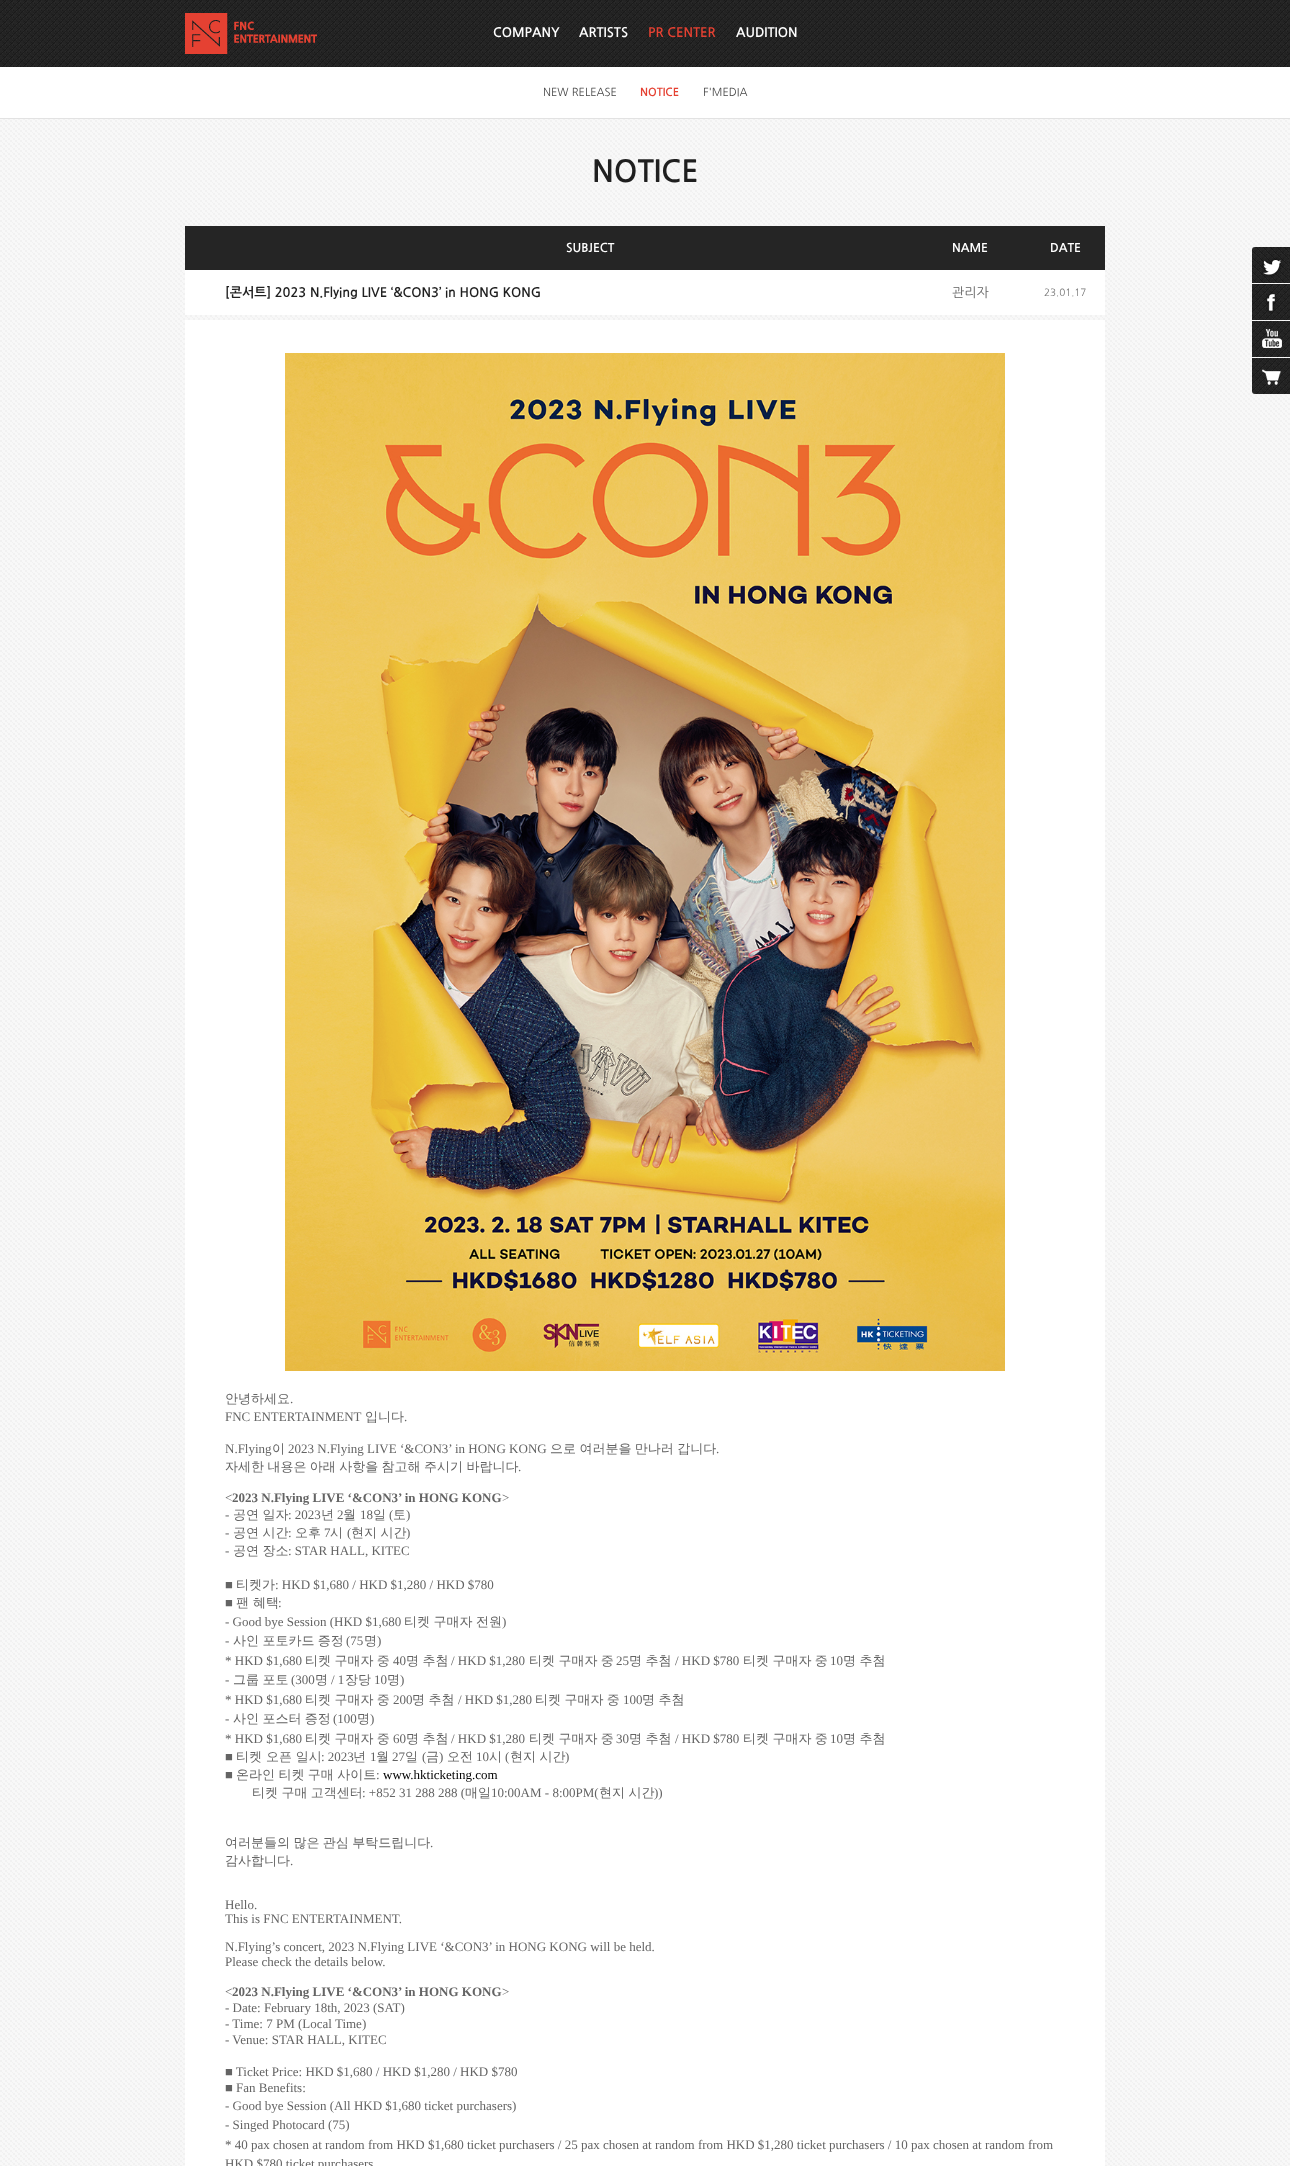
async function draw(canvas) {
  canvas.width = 1290
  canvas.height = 2166
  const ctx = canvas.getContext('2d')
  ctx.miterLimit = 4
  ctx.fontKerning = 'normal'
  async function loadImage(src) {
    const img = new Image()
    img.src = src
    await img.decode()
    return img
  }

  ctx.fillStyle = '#fff'
  ctx.fillRect(0, 0, 1290, 2166)
  ctx.drawImage(await loadImage('image0.png'), 0, 119, 1290, 2047)
  ctx.drawImage(await loadImage('image1.png'), 0, 0, 1290, 67)
  ctx.fillStyle = '#e2e2e2'
  ctx.fillRect(0, 118, 1290, 1)
  ctx.drawImage(await loadImage('image2.png'), 185, 13, 132, 41)
  ctx.font = 'bold 13px NanumGothic'
  ctx.fillStyle = '#fff'
  ctx.fillText('COMPANY', 493, 37)
  ctx.fillStyle = '#e54132'
  ctx.fillText('PR CENTER', 648, 37)
  ctx.font = '11px NanumGothic'
  ctx.fillStyle = '#484848'
  ctx.fillText('NEW RELEASE', 543, 96)
  ctx.font = 'bold 11px NanumGothic'
  ctx.fillStyle = '#e54132'
  ctx.fillText('NOTICE', 640, 96)
  ctx.font = '11px NanumGothic'
  ctx.fillStyle = '#484848'
  ctx.fillText('F\'MEDIA', 703, 96)
  ctx.font = 'bold 13px NanumGothic'
  ctx.fillStyle = '#fff'
  ctx.fillText('ARTISTS', 579, 37)
  ctx.fillText('AUDITION', 736, 37)
  ctx.font = 'bold 30px NanumGothic'
  ctx.fillStyle = '#1f1f1f'
  ctx.fillText('NOTICE', 592, 182)
  ctx.fillStyle = '#252525'
  ctx.fillRect(185, 226, 920, 44)
  ctx.font = 'bold 12px NanumGothic'
  ctx.fillStyle = '#fff'
  ctx.fillText('SUBJECT', 566, 252)
  ctx.fillText('NAME', 952, 252)
  ctx.fillText('DATE', 1050, 252)
  ctx.fillRect(185, 270, 920, 45)
  ctx.drawImage(await loadImage('image3.png'), 185, 315, 730, 5)
  ctx.font = 'bold 13px NanumGothic'
  ctx.fillStyle = '#1f1f1f'
  ctx.fillText('[콘서트] 2023 N.Flying LIVE ‘&CON3’ in HONG KONG', 225, 297)
  ctx.drawImage(await loadImage('image4.png'), 915, 315, 110, 5)
  ctx.font = '13px NanumGothic'
  ctx.fillStyle = '#646464'
  ctx.fillText('관리자', 952, 297)
  ctx.drawImage(await loadImage('image5.png'), 1025, 315, 80, 5)
  ctx.font = '10px NanumGothic'
  ctx.fillStyle = '#757575'
  ctx.fillText('23.01.17', 1044, 296)
  ctx.fillStyle = '#fff'
  ctx.fillRect(185, 320, 920, 1846)
  ctx.drawImage(await loadImage('image6.png'), 285, 353, 720, 1018)
  ctx.font = '500 13px WenQuanYi Zen Hei'
  ctx.fillStyle = '#646464'
  ctx.fillText('안녕하세요', 225, 1403)
  ctx.font = '13px Liberation Serif'
  ctx.fillText('.', 290, 1403)
  ctx.fillText('FNC ENTERTAINMENT', 225, 1421)
  ctx.font = '500 13px WenQuanYi Zen Hei'
  ctx.fillText('입니다', 365, 1421)
  ctx.font = '13px Liberation Serif'
  ctx.fillText('.', 404, 1421)
  ctx.fillText('N.Flying', 225, 1453)
  ctx.font = '500 13px WenQuanYi Zen Hei'
  ctx.fillText('이', 272, 1453)
  ctx.font = '13px Liberation Serif'
  ctx.fillText('2023 N.Flying LIVE ‘&CON3’ in HONG KONG', 288, 1453)
  ctx.wordSpacing = '-0.5px'
  ctx.font = '500 13px WenQuanYi Zen Hei'
  ctx.fillText('으로 여러분을 만나러 갑니다', 550, 1453)
  ctx.wordSpacing = '0px'
  ctx.font = '13px Liberation Serif'
  ctx.fillText('.', 716, 1453)
  ctx.wordSpacing = '-0.5px'
  ctx.font = '500 13px WenQuanYi Zen Hei'
  ctx.fillText('자세한 내용은 아래 사항을 참고해 주시기 바랍니다', 225, 1471)
  ctx.wordSpacing = '0px'
  ctx.font = '13px Liberation Serif'
  ctx.fillText('.', 518, 1471)
  ctx.fillText('<', 225, 1502)
  ctx.font = 'bold 13px Liberation Serif'
  ctx.fillText('2023 N.Flying LIVE ‘&CON3’ in HONG KONG', 232, 1502)
  ctx.font = '13px Liberation Serif'
  ctx.fillText('>', 502, 1502)
  ctx.fillText('-', 225, 1519)
  ctx.wordSpacing = '-0.5px'
  ctx.font = '500 13px WenQuanYi Zen Hei'
  ctx.fillText('공연 일자', 233, 1519)
  ctx.wordSpacing = '0px'
  ctx.font = '13px Liberation Serif'
  ctx.fillText(': 2023', 288, 1519)
  ctx.font = '500 13px WenQuanYi Zen Hei'
  ctx.fillText('년', 321, 1519)
  ctx.font = '13px Liberation Serif'
  ctx.fillText('2', 337, 1519)
  ctx.font = '500 13px WenQuanYi Zen Hei'
  ctx.fillText('월', 343, 1519)
  ctx.font = '13px Liberation Serif'
  ctx.fillText('18', 360, 1519)
  ctx.font = '500 13px WenQuanYi Zen Hei'
  ctx.fillText('일', 373, 1519)
  ctx.font = '13px Liberation Serif'
  ctx.fillText('(', 389, 1519)
  ctx.font = '500 13px WenQuanYi Zen Hei'
  ctx.fillText('토', 393, 1519)
  ctx.font = '13px Liberation Serif'
  ctx.fillText(')', 406, 1519)
  ctx.fillText('-', 225, 1537)
  ctx.wordSpacing = '-0.5px'
  ctx.font = '500 13px WenQuanYi Zen Hei'
  ctx.fillText('공연 시간', 233, 1537)
  ctx.wordSpacing = '0px'
  ctx.font = '13px Liberation Serif'
  ctx.fillText(':', 288, 1537)
  ctx.font = '500 13px WenQuanYi Zen Hei'
  ctx.fillText('오후', 295, 1537)
  ctx.font = '13px Liberation Serif'
  ctx.fillText('7', 324, 1537)
  ctx.font = '500 13px WenQuanYi Zen Hei'
  ctx.fillText('시', 330, 1537)
  ctx.font = '13px Liberation Serif'
  ctx.fillText('(', 347, 1537)
  ctx.wordSpacing = '-0.5px'
  ctx.font = '500 13px WenQuanYi Zen Hei'
  ctx.fillText('현지 시간', 351, 1537)
  ctx.wordSpacing = '0px'
  ctx.font = '13px Liberation Serif'
  ctx.fillText(')', 406, 1537)
  ctx.fillText('-', 225, 1555)
  ctx.wordSpacing = '-0.5px'
  ctx.font = '500 13px WenQuanYi Zen Hei'
  ctx.fillText('공연 장소', 233, 1555)
  ctx.wordSpacing = '0px'
  ctx.font = '13px Liberation Serif'
  ctx.fillText(': STAR HALL, KITEC', 288, 1555)
  ctx.fillText('■', 225, 1589)
  ctx.font = '500 13px WenQuanYi Zen Hei'
  ctx.fillText('티켓가', 236, 1589)
  ctx.font = '13px Liberation Serif'
  ctx.fillText(': HKD $1,680 / HKD $1,280 / HKD $780', 275, 1589)
  ctx.fillText('■', 225, 1607)
  ctx.font = '500 13px WenQuanYi Zen Hei'
  ctx.fillText('팬 혜택', 236, 1607)
  ctx.font = '13px Liberation Serif'
  ctx.fillText(':', 278, 1607)
  ctx.fillText('- Good bye Session (HKD $1,680', 225, 1626)
  ctx.wordSpacing = '-0.5px'
  ctx.font = '500 13px WenQuanYi Zen Hei'
  ctx.fillText('티켓 구매자', 404, 1626)
  ctx.wordSpacing = '0px'
  ctx.fillText('전원', 476, 1626)
  ctx.font = '13px Liberation Serif'
  ctx.fillText(')', 502, 1626)
  ctx.fillText('-', 225, 1645)
  ctx.wordSpacing = '-0.5px'
  ctx.font = '500 13px WenQuanYi Zen Hei'
  ctx.fillText('사인 포토카드 증정', 233, 1645)
  ctx.wordSpacing = '0px'
  ctx.font = '13px Liberation Serif'
  ctx.fillText('(75', 346, 1645)
  ctx.font = '500 13px WenQuanYi Zen Hei'
  ctx.fillText('명', 364, 1645)
  ctx.font = '13px Liberation Serif'
  ctx.fillText(')', 377, 1645)
  ctx.fillText('* HKD $1,680', 225, 1665)
  ctx.wordSpacing = '-0.5px'
  ctx.font = '500 13px WenQuanYi Zen Hei'
  ctx.fillText('티켓 구매자 중', 305, 1665)
  ctx.wordSpacing = '0px'
  ctx.font = '13px Liberation Serif'
  ctx.fillText('40', 393, 1665)
  ctx.wordSpacing = '-0.5px'
  ctx.font = '500 13px WenQuanYi Zen Hei'
  ctx.fillText('명 추첨', 406, 1665)
  ctx.wordSpacing = '0px'
  ctx.font = '13px Liberation Serif'
  ctx.fillText('/ HKD $1,280', 451, 1665)
  ctx.wordSpacing = '-0.5px'
  ctx.font = '500 13px WenQuanYi Zen Hei'
  ctx.fillText('티켓 구매자 중', 529, 1665)
  ctx.wordSpacing = '0px'
  ctx.font = '13px Liberation Serif'
  ctx.fillText('25', 616, 1665)
  ctx.wordSpacing = '-0.5px'
  ctx.font = '500 13px WenQuanYi Zen Hei'
  ctx.fillText('명 추첨', 629, 1665)
  ctx.wordSpacing = '0px'
  ctx.font = '13px Liberation Serif'
  ctx.fillText('/ HKD $780', 675, 1665)
  ctx.wordSpacing = '-0.5px'
  ctx.font = '500 13px WenQuanYi Zen Hei'
  ctx.fillText('티켓 구매자 중', 743, 1665)
  ctx.wordSpacing = '0px'
  ctx.font = '13px Liberation Serif'
  ctx.fillText('10', 830, 1665)
  ctx.wordSpacing = '-0.5px'
  ctx.font = '500 13px WenQuanYi Zen Hei'
  ctx.fillText('명 추첨', 843, 1665)
  ctx.wordSpacing = '0px'
  ctx.font = '13px Liberation Serif'
  ctx.fillText('-', 225, 1684)
  ctx.wordSpacing = '-0.5px'
  ctx.font = '500 13px WenQuanYi Zen Hei'
  ctx.fillText('그룹 포토', 233, 1684)
  ctx.wordSpacing = '0px'
  ctx.font = '13px Liberation Serif'
  ctx.fillText('(300', 291, 1684)
  ctx.font = '500 13px WenQuanYi Zen Hei'
  ctx.fillText('명', 315, 1684)
  ctx.font = '13px Liberation Serif'
  ctx.fillText('/ 1', 331, 1684)
  ctx.font = '500 13px WenQuanYi Zen Hei'
  ctx.fillText('장당', 345, 1684)
  ctx.font = '13px Liberation Serif'
  ctx.fillText('10', 374, 1684)
  ctx.font = '500 13px WenQuanYi Zen Hei'
  ctx.fillText('명', 387, 1684)
  ctx.font = '13px Liberation Serif'
  ctx.fillText(')', 400, 1684)
  ctx.fillText('* HKD $1,680', 225, 1704)
  ctx.wordSpacing = '-0.5px'
  ctx.font = '500 13px WenQuanYi Zen Hei'
  ctx.fillText('티켓 구매자 중', 305, 1704)
  ctx.wordSpacing = '0px'
  ctx.font = '13px Liberation Serif'
  ctx.fillText('200', 393, 1704)
  ctx.wordSpacing = '-0.5px'
  ctx.font = '500 13px WenQuanYi Zen Hei'
  ctx.fillText('명 추첨', 412, 1704)
  ctx.wordSpacing = '0px'
  ctx.font = '13px Liberation Serif'
  ctx.fillText('/ HKD $1,280', 458, 1704)
  ctx.wordSpacing = '-0.5px'
  ctx.font = '500 13px WenQuanYi Zen Hei'
  ctx.fillText('티켓 구매자 중', 535, 1704)
  ctx.wordSpacing = '0px'
  ctx.font = '13px Liberation Serif'
  ctx.fillText('100', 623, 1704)
  ctx.wordSpacing = '-0.5px'
  ctx.font = '500 13px WenQuanYi Zen Hei'
  ctx.fillText('명 추첨', 642, 1704)
  ctx.wordSpacing = '0px'
  ctx.font = '13px Liberation Serif'
  ctx.fillText('-', 225, 1723)
  ctx.wordSpacing = '-0.5px'
  ctx.font = '500 13px WenQuanYi Zen Hei'
  ctx.fillText('사인 포스터 증정', 233, 1723)
  ctx.wordSpacing = '0px'
  ctx.font = '13px Liberation Serif'
  ctx.fillText('(100', 333, 1723)
  ctx.font = '500 13px WenQuanYi Zen Hei'
  ctx.fillText('명', 357, 1723)
  ctx.font = '13px Liberation Serif'
  ctx.fillText(')', 370, 1723)
  ctx.fillText('* HKD $1,680', 225, 1743)
  ctx.wordSpacing = '-0.5px'
  ctx.font = '500 13px WenQuanYi Zen Hei'
  ctx.fillText('티켓 구매자 중', 305, 1743)
  ctx.wordSpacing = '0px'
  ctx.font = '13px Liberation Serif'
  ctx.fillText('60', 393, 1743)
  ctx.wordSpacing = '-0.5px'
  ctx.font = '500 13px WenQuanYi Zen Hei'
  ctx.fillText('명 추첨', 406, 1743)
  ctx.wordSpacing = '0px'
  ctx.font = '13px Liberation Serif'
  ctx.fillText('/ HKD $1,280', 451, 1743)
  ctx.wordSpacing = '-0.5px'
  ctx.font = '500 13px WenQuanYi Zen Hei'
  ctx.fillText('티켓 구매자 중', 529, 1743)
  ctx.wordSpacing = '0px'
  ctx.font = '13px Liberation Serif'
  ctx.fillText('30', 616, 1743)
  ctx.wordSpacing = '-0.5px'
  ctx.font = '500 13px WenQuanYi Zen Hei'
  ctx.fillText('명 추첨', 629, 1743)
  ctx.wordSpacing = '0px'
  ctx.font = '13px Liberation Serif'
  ctx.fillText('/ HKD $780', 675, 1743)
  ctx.wordSpacing = '-0.5px'
  ctx.font = '500 13px WenQuanYi Zen Hei'
  ctx.fillText('티켓 구매자 중', 743, 1743)
  ctx.wordSpacing = '0px'
  ctx.font = '13px Liberation Serif'
  ctx.fillText('10', 830, 1743)
  ctx.wordSpacing = '-0.5px'
  ctx.font = '500 13px WenQuanYi Zen Hei'
  ctx.fillText('명 추첨', 843, 1743)
  ctx.wordSpacing = '0px'
  ctx.font = '13px Liberation Serif'
  ctx.fillText('■', 225, 1761)
  ctx.font = '500 13px WenQuanYi Zen Hei'
  ctx.fillText('티켓 오픈 일시', 236, 1761)
  ctx.font = '13px Liberation Serif'
  ctx.fillText(': 2023', 321, 1761)
  ctx.font = '500 13px WenQuanYi Zen Hei'
  ctx.fillText('년', 353, 1761)
  ctx.font = '13px Liberation Serif'
  ctx.fillText('1', 370, 1761)
  ctx.font = '500 13px WenQuanYi Zen Hei'
  ctx.fillText('월', 376, 1761)
  ctx.font = '13px Liberation Serif'
  ctx.fillText('27', 392, 1761)
  ctx.font = '500 13px WenQuanYi Zen Hei'
  ctx.fillText('일', 405, 1761)
  ctx.font = '13px Liberation Serif'
  ctx.fillText('(', 422, 1761)
  ctx.font = '500 13px WenQuanYi Zen Hei'
  ctx.fillText('금', 426, 1761)
  ctx.font = '13px Liberation Serif'
  ctx.fillText(')', 439, 1761)
  ctx.font = '500 13px WenQuanYi Zen Hei'
  ctx.fillText('오전', 447, 1761)
  ctx.font = '13px Liberation Serif'
  ctx.fillText('10', 476, 1761)
  ctx.font = '500 13px WenQuanYi Zen Hei'
  ctx.fillText('시', 489, 1761)
  ctx.font = '13px Liberation Serif'
  ctx.fillText('(', 505, 1761)
  ctx.wordSpacing = '-0.5px'
  ctx.font = '500 13px WenQuanYi Zen Hei'
  ctx.fillText('현지 시간', 510, 1761)
  ctx.wordSpacing = '0px'
  ctx.font = '13px Liberation Serif'
  ctx.fillText(')', 565, 1761)
  ctx.fillText('■', 225, 1779)
  ctx.wordSpacing = '-0.5px'
  ctx.font = '500 13px WenQuanYi Zen Hei'
  ctx.fillText('온라인 티켓 구매 사이트', 236, 1779)
  ctx.wordSpacing = '0px'
  ctx.font = '13px Liberation Serif'
  ctx.fillText(':', 376, 1779)
  ctx.fillStyle = '#000'
  ctx.fillText('www.hkticketing.com', 383, 1779)
  ctx.wordSpacing = '-0.5px'
  ctx.font = '500 13px WenQuanYi Zen Hei'
  ctx.fillStyle = '#646464'
  ctx.fillText('티켓 구매 고객센터', 252, 1797)
  ctx.wordSpacing = '0px'
  ctx.font = '13px Liberation Serif'
  ctx.fillText(': +852 31 288 288 (', 362, 1797)
  ctx.font = '500 13px WenQuanYi Zen Hei'
  ctx.fillText('매일', 465, 1797)
  ctx.font = '13px Liberation Serif'
  ctx.fillText('10:00AM - 8:00PM(', 491, 1797)
  ctx.wordSpacing = '-0.5px'
  ctx.font = '500 13px WenQuanYi Zen Hei'
  ctx.fillText('현지 시간', 599, 1797)
  ctx.wordSpacing = '0px'
  ctx.font = '13px Liberation Serif'
  ctx.fillText('))', 654, 1797)
  ctx.wordSpacing = '-0.5px'
  ctx.font = '500 13px WenQuanYi Zen Hei'
  ctx.fillText('여러분들의 많은 관심 부탁드립니다', 225, 1847)
  ctx.wordSpacing = '0px'
  ctx.font = '13px Liberation Serif'
  ctx.fillText('.', 430, 1847)
  ctx.font = '500 13px WenQuanYi Zen Hei'
  ctx.fillText('감사합니다', 225, 1865)
  ctx.font = '13px Liberation Serif'
  ctx.fillText('.', 290, 1865)
  ctx.fillText('Hello.', 225, 1909)
  ctx.fillText('This is FNC ENTERTAINMENT.', 225, 1923)
  ctx.fillText('N.Flying’s concert, 2023 N.Flying LIVE ‘&CON3’ in HONG KONG will be held.', 225, 1951)
  ctx.fillText('Please check the details below.', 225, 1966)
  ctx.fillText('<', 225, 1996)
  ctx.font = 'bold 13px Liberation Serif'
  ctx.fillText('2023 N.Flying LIVE ‘&CON3’ in HONG KONG', 232, 1996)
  ctx.font = '13px Liberation Serif'
  ctx.fillText('>', 502, 1996)
  ctx.fillText('- Date: February 18th, 2023 (SAT)', 225, 2012)
  ctx.fillText('- Time: 7 PM (Local Time)', 225, 2028)
  ctx.fillText('- Venue: STAR HALL, KITEC', 225, 2044)
  ctx.fillText('■ Ticket Price: HKD $1,680 / HKD $1,280 / HKD $780', 225, 2076)
  ctx.fillText('■ Fan Benefits:', 225, 2092)
  ctx.fillText('- Good bye Session (All HKD $1,680 ticket purchasers)', 225, 2110)
  ctx.fillText('- Singed Photocard (75)', 225, 2129)
  ctx.fillText('* 40 pax chosen at random from HKD $1,680 ticket purchasers / 25 pax chosen at random from HKD $1,280 ticket purchasers / 10 pax chosen at random from', 225, 2149)
  ctx.fillText('HKD $780 ticket purchasers', 225, 2168)
  ctx.drawImage(await loadImage('image7.png'), 1252, 247, 38, 36)
  ctx.drawImage(await loadImage('image8.png'), 1252, 284, 38, 36)
  ctx.drawImage(await loadImage('image9.png'), 1252, 321, 38, 36)
  ctx.drawImage(await loadImage('image10.png'), 1252, 358, 38, 36)
}

draw(document.querySelector('canvas'))
